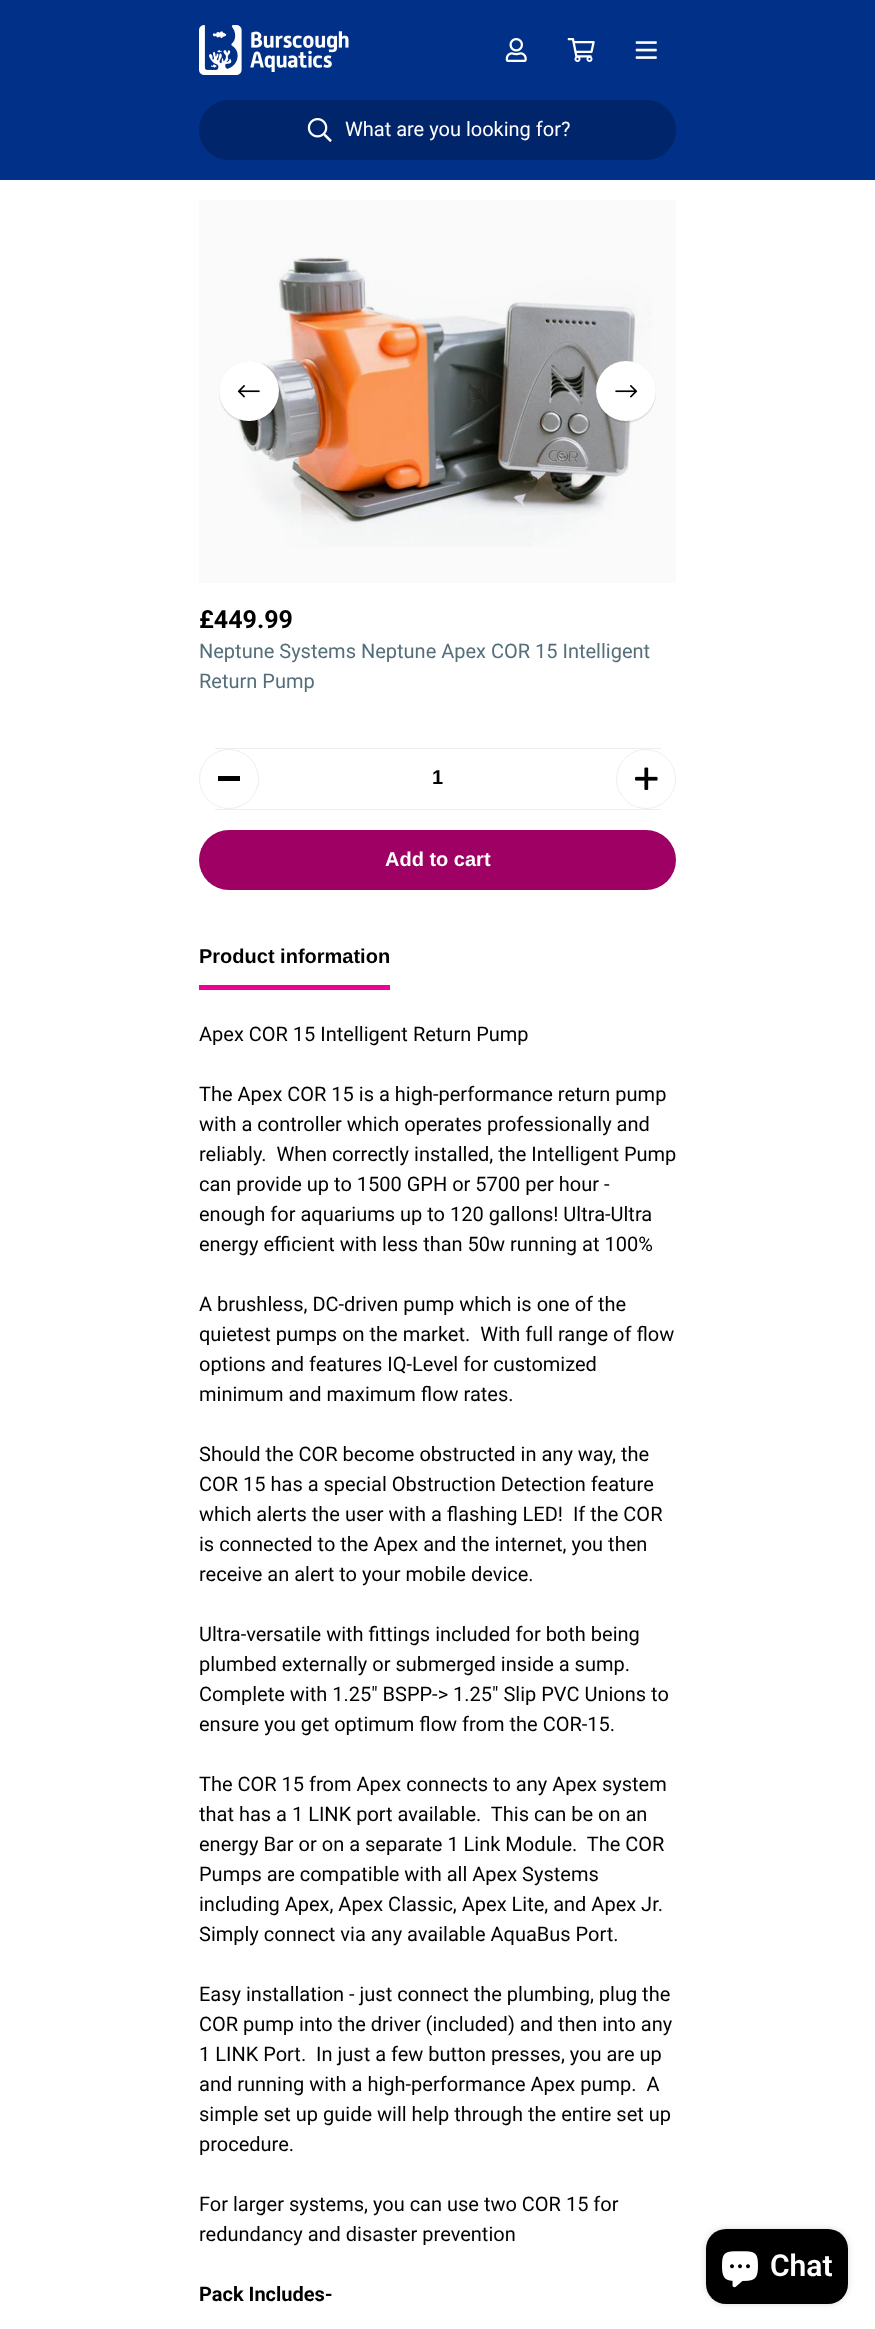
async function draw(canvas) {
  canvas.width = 875
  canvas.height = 2329
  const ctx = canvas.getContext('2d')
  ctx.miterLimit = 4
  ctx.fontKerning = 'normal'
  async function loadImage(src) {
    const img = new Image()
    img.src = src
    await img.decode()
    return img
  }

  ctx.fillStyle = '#fff'
  ctx.fillRect(0, 0, 875, 2329)
  ctx.fillStyle = '#fafafa'
  ctx.fillRect(199, 200, 477, 383)
  ctx.fillStyle = '#003087'
  ctx.fillRect(0, 0, 875, 180)
  ctx.drawImage(await loadImage('image0.png'), 199, 25, 150, 50)
  ctx.drawImage(await loadImage('image1.png'), 505, 38, 22, 24)
  ctx.drawImage(await loadImage('image2.png'), 567, 38, 28, 24)
  ctx.drawImage(await loadImage('image3.png'), 635, 41, 22, 18)
  ctx.fillStyle = '#00256a'
  ctx.beginPath()
  ctx.roundRect(199, 100, 477, 60, 30)
  ctx.fill()
  ctx.drawImage(await loadImage('image4.png'), 307, 118, 25, 24)
  ctx.font = '20px Roboto'
  ctx.fillStyle = '#fff'
  ctx.fillText('What are you looking for?', 345, 136)
  ctx.drawImage(await loadImage('image5.png'), 235, 256, 417, 291)
  ctx.fillStyle = '#0000001a'
  ctx.filter = 'blur(0.5px)'
  ctx.beginPath()
  ctx.roundRect(219, 363, 60, 60, 30)
  ctx.fill()
  ctx.filter = 'none'
  ctx.filter = 'blur(0.5px)'
  ctx.beginPath()
  ctx.roundRect(219, 361, 60, 60, 30)
  ctx.fill()
  ctx.filter = 'none'
  ctx.fillStyle = '#fff'
  ctx.beginPath()
  ctx.arc(249, 391, 30, 0, 2 * Math.PI)
  ctx.fill()
  ctx.drawImage(await loadImage('image6.png'), 237, 385, 23, 13)
  ctx.fillStyle = '#0000001a'
  ctx.filter = 'blur(0.5px)'
  ctx.beginPath()
  ctx.roundRect(596, 363, 60, 60, 30)
  ctx.fill()
  ctx.filter = 'none'
  ctx.filter = 'blur(0.5px)'
  ctx.beginPath()
  ctx.roundRect(596, 361, 60, 60, 30)
  ctx.fill()
  ctx.filter = 'none'
  ctx.fillStyle = '#fff'
  ctx.beginPath()
  ctx.arc(626, 391, 30, 0, 2 * Math.PI)
  ctx.fill()
  ctx.drawImage(await loadImage('image7.png'), 615, 385, 23, 13)
  ctx.font = 'bold 25px Roboto'
  ctx.fillStyle = '#000'
  ctx.fillText('£449.99', 199, 628)
  ctx.font = '20px Roboto'
  ctx.fillStyle = '#546e7a'
  ctx.fillText('Neptune Systems Neptune Apex COR 15 Intelligent', 199, 658)
  ctx.fillText('Return Pump', 199, 688)
  ctx.fillStyle = '#eceff1'
  ctx.fillRect(215, 748, 446, 1)
  ctx.fillRect(215, 809, 446, 1)
  ctx.beginPath()
  ctx.arc(229, 779, 29.5, 0, 2 * Math.PI)
  ctx.strokeStyle = '#eceff1'
  ctx.stroke()
  ctx.fillStyle = '#000'
  ctx.fillRect(218, 776, 22, 5)
  ctx.font = 'bold 20px Liberation Sans'
  ctx.fillText('1', 432, 784)
  ctx.beginPath()
  ctx.arc(646, 779, 29.5, 0, 2 * Math.PI)
  ctx.stroke()
  ctx.drawImage(await loadImage('image8.png'), 635, 767, 23, 23)
  ctx.fillStyle = '#9e0063'
  ctx.beginPath()
  ctx.roundRect(199, 830, 477, 60, 30)
  ctx.fill()
  ctx.fillStyle = '#fff'
  ctx.fillText('Add to cart', 385, 866)
  ctx.fillStyle = '#ee0095'
  ctx.fillRect(199, 985, 191, 5)
  ctx.fillStyle = '#000'
  ctx.fillText('Product information', 199, 963)
  ctx.font = '20px Roboto'
  ctx.fillText('Apex COR 15 Intelligent Return Pump', 199, 1041)
  ctx.fillText('The Apex COR 15 is a high-performance return pump', 199, 1101)
  ctx.fillText('with a controller which operates professionally and', 199, 1131)
  ctx.fillText('reliably.  When correctly installed, the Intelligent Pump', 199, 1161)
  ctx.fillText('can provide up to 1500 GPH or 5700 per hour -', 199, 1191)
  ctx.fillText('enough for aquariums up to 120 gallons! Ultra-Ultra', 199, 1221)
  ctx.fillText('energy efficient with less than 50w running at 100%', 199, 1251)
  ctx.fillText('A brushless, DC-driven pump which is one of the', 199, 1311)
  ctx.fillText('quietest pumps on the market.  With full range of flow', 199, 1341)
  ctx.fillText('options and features IQ-Level for customized', 199, 1371)
  ctx.fillText('minimum and maximum flow rates.', 199, 1401)
  ctx.fillText('Should the COR become obstructed in any way, the', 199, 1461)
  ctx.fillText('COR 15 has a special Obstruction Detection feature', 199, 1491)
  ctx.fillText('which alerts the user with a flashing LED!  If the COR', 199, 1521)
  ctx.fillText('is connected to the Apex and the internet, you then', 199, 1551)
  ctx.fillText('receive an alert to your mobile device.', 199, 1581)
  ctx.fillText('Ultra-versatile with fittings included for both being', 199, 1641)
  ctx.fillText('plumbed externally or submerged inside a sump.', 199, 1671)
  ctx.fillText('Complete with 1.25" BSPP-> 1.25" Slip PVC Unions to', 199, 1701)
  ctx.fillText('ensure you get optimum flow from the COR-15.', 199, 1731)
  ctx.fillText('The COR 15 from Apex connects to any Apex system', 199, 1791)
  ctx.fillText('that has a 1 LINK port available.  This can be on an', 199, 1821)
  ctx.fillText('energy Bar or on a separate 1 Link Module.  The COR', 199, 1851)
  ctx.fillText('Pumps are compatible with all Apex Systems', 199, 1881)
  ctx.fillText('including Apex, Apex Classic, Apex Lite, and Apex Jr.', 199, 1911)
  ctx.fillText('Simply connect via any available AquaBus Port.', 199, 1941)
  ctx.fillText('Easy installation - just connect the plumbing, plug the', 199, 2001)
  ctx.fillText('COR pump into the driver (included) and then into any', 199, 2031)
  ctx.fillText('1 LINK Port.  In just a few button presses, you are up', 199, 2061)
  ctx.fillText('and running with a high-performance Apex pump.  A', 199, 2091)
  ctx.fillText('simple set up guide will help through the entire set up', 199, 2121)
  ctx.fillText('procedure.', 199, 2151)
  ctx.fillText('For larger systems, you can use two COR 15 for', 199, 2211)
  ctx.fillText('redundancy and disaster prevention', 199, 2241)
  ctx.font = 'bold 20px Roboto'
  ctx.fillText('Pack Includes-', 199, 2301)
  ctx.fillStyle = '#00000026'
  ctx.filter = 'blur(3px)'
  ctx.beginPath()
  ctx.roundRect(706, 2229, 142, 75, 20)
  ctx.fill()
  ctx.filter = 'none'
  ctx.fillStyle = '#000'
  ctx.beginPath()
  ctx.roundRect(706, 2229, 142, 75, 20)
  ctx.fill()
  ctx.drawImage(await loadImage('image9.png'), 722, 2251, 36, 37)
  ctx.font = '600 30px Roboto'
  ctx.fillStyle = '#fff'
  ctx.fillText('Chat', 770, 2276)
}

draw(document.querySelector('canvas'))
